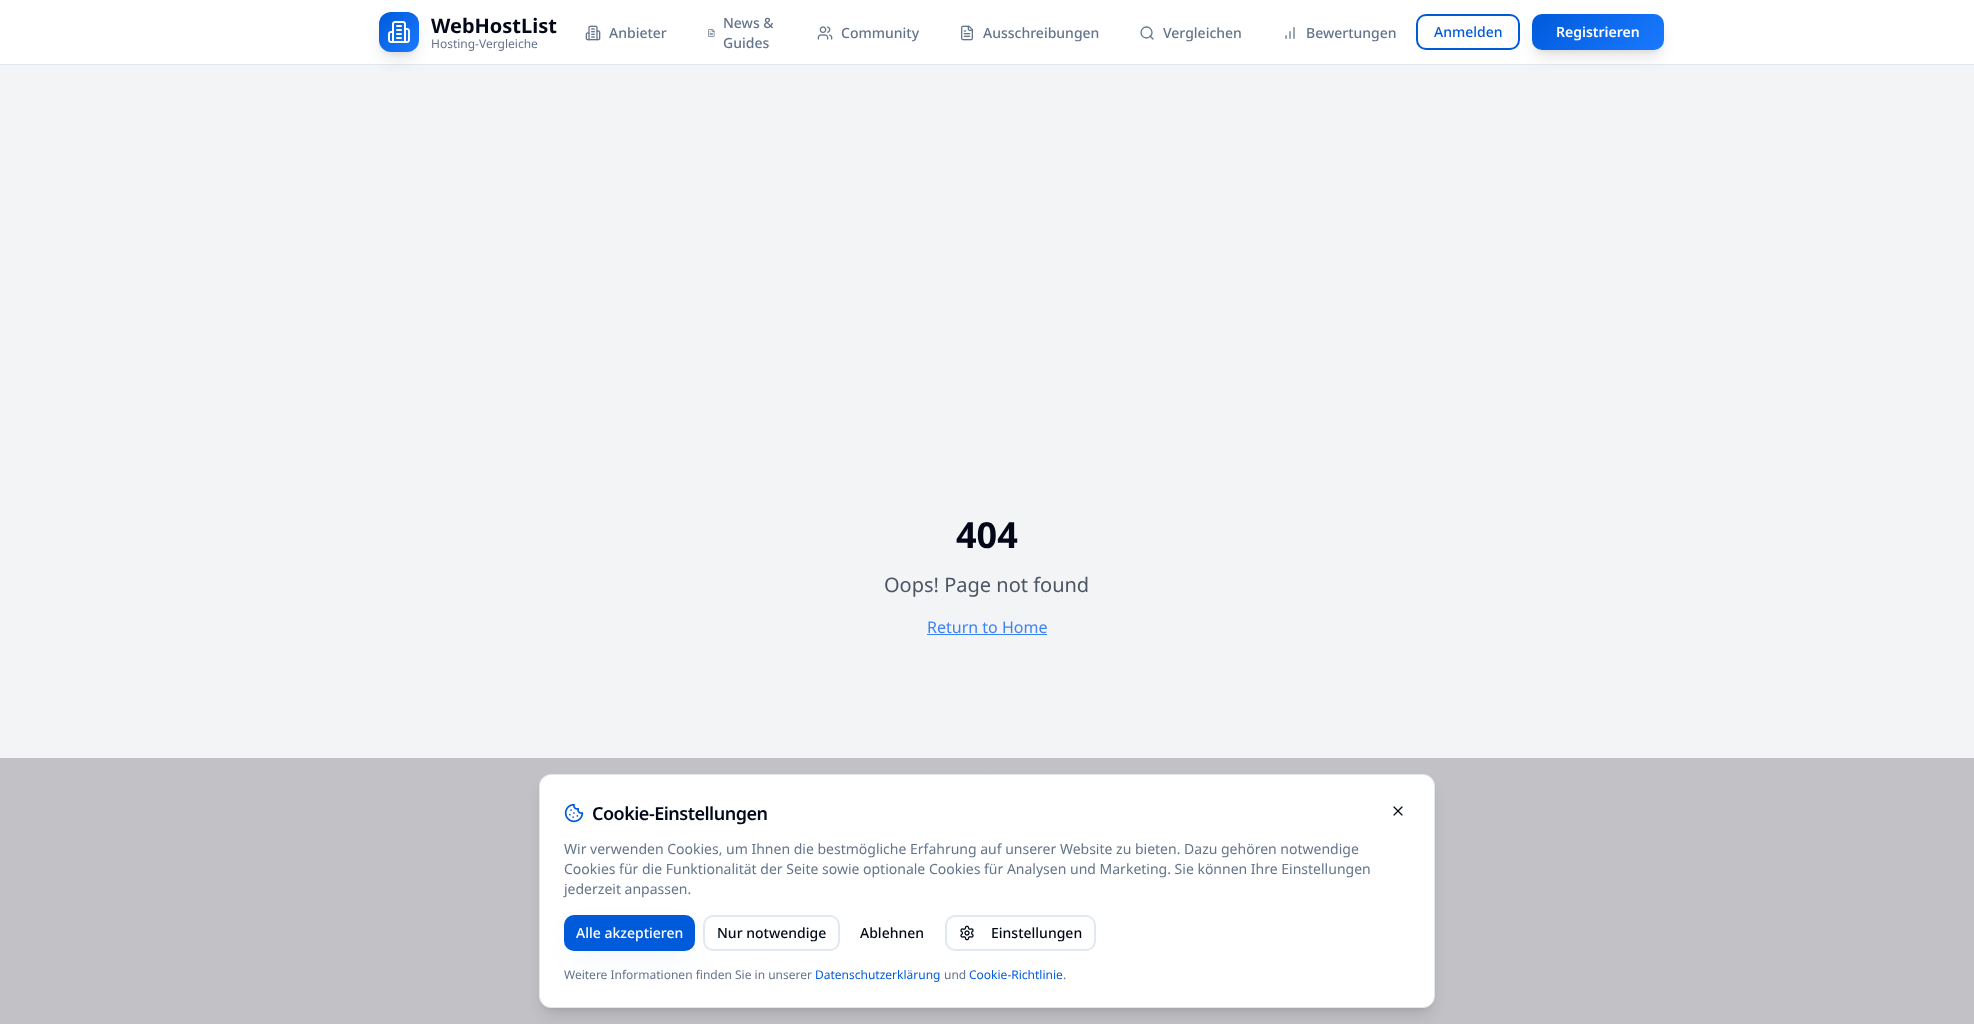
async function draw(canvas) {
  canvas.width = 1974
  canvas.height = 1024
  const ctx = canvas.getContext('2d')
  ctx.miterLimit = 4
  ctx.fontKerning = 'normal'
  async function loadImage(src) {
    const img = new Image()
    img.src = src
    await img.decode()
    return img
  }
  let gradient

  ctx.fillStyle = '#fff'
  ctx.fillRect(0, 0, 1974, 1024)
  ctx.fillStyle = '#e2e8f0'
  ctx.fillRect(0, 64, 1974, 1)
  ctx.fillStyle = '#0000001a'
  ctx.filter = 'blur(3px)'
  ctx.beginPath()
  ctx.roundRect(383, 20, 32, 32, 8)
  ctx.fill()
  ctx.filter = 'none'
  ctx.fillStyle = '#f3f4f6'
  ctx.fillRect(0, 65, 1974, 693)
  ctx.fillStyle = '#0000001a'
  ctx.filter = 'blur(7.5px)'
  ctx.beginPath()
  ctx.roundRect(382, 25, 34, 34, 9)
  ctx.fill()
  ctx.filter = 'none'
  gradient = ctx.createLinearGradient(379, 12, 419, 52)
  gradient.addColorStop(0, '#005bdb')
  gradient.addColorStop(1, '#1a79ff')
  ctx.fillStyle = gradient
  ctx.beginPath()
  ctx.roundRect(379, 12, 40, 40, 12)
  ctx.fill()
  ctx.drawImage(await loadImage('image0.png'), 388, 21, 22, 22)
  ctx.font = 'bold 20px Noto Sans'
  ctx.fillStyle = '#020817'
  ctx.fillText('WebHostList', 431, 33)
  ctx.font = '12px Noto Sans'
  ctx.fillStyle = '#64748b'
  ctx.fillText('Hosting-Vergleiche', 431, 48)
  ctx.drawImage(await loadImage('image1.png'), 585, 25, 16, 16)
  ctx.font = '500 14px Noto Sans'
  ctx.fillText('Anbieter', 609, 38)
  ctx.fillText('News &', 723, 28)
  ctx.drawImage(await loadImage('image2.png'), 708, 29, 7, 8)
  ctx.fillText('Guides', 723, 48)
  ctx.drawImage(await loadImage('image3.png'), 817, 26, 16, 14)
  ctx.fillText('Community', 841, 38)
  ctx.drawImage(await loadImage('image4.png'), 961, 25, 12, 16)
  ctx.fillText('Ausschreibungen', 983, 38)
  ctx.beginPath()
  ctx.arc(1146.5, 32.5, 5.5, 0, 2 * Math.PI)
  ctx.strokeStyle = '#64748b'
  ctx.lineWidth = 1.3
  ctx.stroke()
  ctx.beginPath()
  ctx.moveTo(1153, 39)
  ctx.lineTo(1150, 36)
  ctx.lineCap = 'round'
  ctx.lineJoin = 'round'
  ctx.stroke()
  ctx.fillText('Vergleichen', 1163, 38)
  ctx.drawImage(await loadImage('image5.png'), 1285, 27, 10, 12)
  ctx.fillText('Bewertungen', 1306, 38)
  ctx.beginPath()
  ctx.roundRect(1417, 15, 102, 34, 9)
  ctx.strokeStyle = '#005bdb'
  ctx.lineWidth = 2
  ctx.lineJoin = 'miter'
  ctx.stroke()
  ctx.fillStyle = '#005bdb'
  ctx.fillText('Anmelden', 1434, 37)
  ctx.fillStyle = '#0000001a'
  ctx.filter = 'blur(3px)'
  ctx.beginPath()
  ctx.roundRect(1536, 22, 124, 28, 6)
  ctx.fill()
  ctx.filter = 'none'
  ctx.filter = 'blur(7.5px)'
  ctx.beginPath()
  ctx.roundRect(1535, 27, 126, 30, 7)
  ctx.fill()
  ctx.filter = 'none'
  gradient = ctx.createLinearGradient(1556, -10, 1640, 74)
  gradient.addColorStop(0, '#005bdb')
  gradient.addColorStop(1, '#1a79ff')
  ctx.fillStyle = gradient
  ctx.beginPath()
  ctx.roundRect(1532, 14, 132, 36, 10)
  ctx.fill()
  ctx.font = '600 14px Noto Sans'
  ctx.fillStyle = '#fff'
  ctx.fillText('Registrieren', 1556, 37)
  ctx.font = 'bold 36px Noto Sans'
  ctx.fillStyle = '#020817'
  ctx.fillText('404', 956, 548)
  ctx.font = '20px Noto Sans'
  ctx.fillStyle = '#4b5563'
  ctx.fillText('Oops! Page not found', 884, 592)
  ctx.font = '16px Noto Sans'
  ctx.fillStyle = '#3b82f6'
  ctx.fillText('Return to Home', 927, 633)
  ctx.fillRect(927, 634, 120, 1)
  ctx.fillStyle = '#c2c2c6'
  ctx.fillRect(0, 758, 1974, 266)
  ctx.fillStyle = '#0000001a'
  ctx.filter = 'blur(3px)'
  ctx.beginPath()
  ctx.roundRect(543, 782, 888, 226, 8)
  ctx.fill()
  ctx.filter = 'none'
  ctx.filter = 'blur(7.5px)'
  ctx.beginPath()
  ctx.roundRect(542, 787, 890, 228, 9)
  ctx.fill()
  ctx.filter = 'none'
  ctx.fillStyle = '#fff'
  ctx.beginPath()
  ctx.roundRect(539.5, 774.5, 895, 233, 11.5)
  ctx.fill()
  ctx.strokeStyle = '#e2e8f0'
  ctx.lineWidth = 1
  ctx.stroke()
  ctx.drawImage(await loadImage('image6.png'), 564, 803, 20, 20)
  ctx.letterSpacing = '-0.5px'
  ctx.font = '600 18px Noto Sans'
  ctx.fillStyle = '#020817'
  ctx.fillText('Cookie-Einstellungen', 592, 820)
  ctx.drawImage(await loadImage('image7.png'), 1393, 806, 10, 10)
  ctx.letterSpacing = '0px'
  ctx.font = '14px Noto Sans'
  ctx.fillStyle = '#64748b'
  ctx.fillText('Wir verwenden Cookies, um Ihnen die bestmögliche Erfahrung auf unserer Website zu bieten. Dazu gehören notwendige', 564, 854)
  ctx.fillText('Cookies für die Funktionalität der Seite sowie optionale Cookies für Analysen und Marketing. Sie können Ihre Einstellungen', 564, 874)
  ctx.fillText('jederzeit anpassen.', 564, 894)
  ctx.fillStyle = '#005bdb1a'
  ctx.filter = 'blur(15px)'
  ctx.beginPath()
  ctx.rect(574, 935, 111, 16)
  ctx.fill()
  ctx.filter = 'none'
  ctx.fillStyle = '#005bdb'
  ctx.beginPath()
  ctx.roundRect(564, 915, 131, 36, 10)
  ctx.fill()
  ctx.font = '500 14px Noto Sans'
  ctx.fillStyle = '#fff'
  ctx.fillText('Alle akzeptieren', 576, 938)
  ctx.beginPath()
  ctx.roundRect(704, 916, 135, 34, 9)
  ctx.lineWidth = 2
  ctx.stroke()
  ctx.fillStyle = '#020817'
  ctx.fillText('Nur notwendige', 717, 938)
  ctx.fillText('Ablehnen', 860, 938)
  ctx.beginPath()
  ctx.roundRect(946, 916, 149, 34, 9)
  ctx.stroke()
  ctx.drawImage(await loadImage('image8.png'), 960, 925, 14, 16)
  ctx.fillText('Einstellungen', 991, 938)
  ctx.font = '12px Noto Sans'
  ctx.fillStyle = '#64748b'
  ctx.fillText('Weitere Informationen finden Sie in unserer', 564, 979)
  ctx.fillStyle = '#005bdb'
  ctx.fillText('Datenschutzerklärung', 815, 979)
  ctx.fillStyle = '#64748b'
  ctx.fillText('und', 944, 979)
  ctx.fillStyle = '#005bdb'
  ctx.fillText('Cookie-Richtlinie', 969, 979)
  ctx.fillStyle = '#64748b'
  ctx.fillText('.', 1063, 979)
}

draw(document.querySelector('canvas'))
